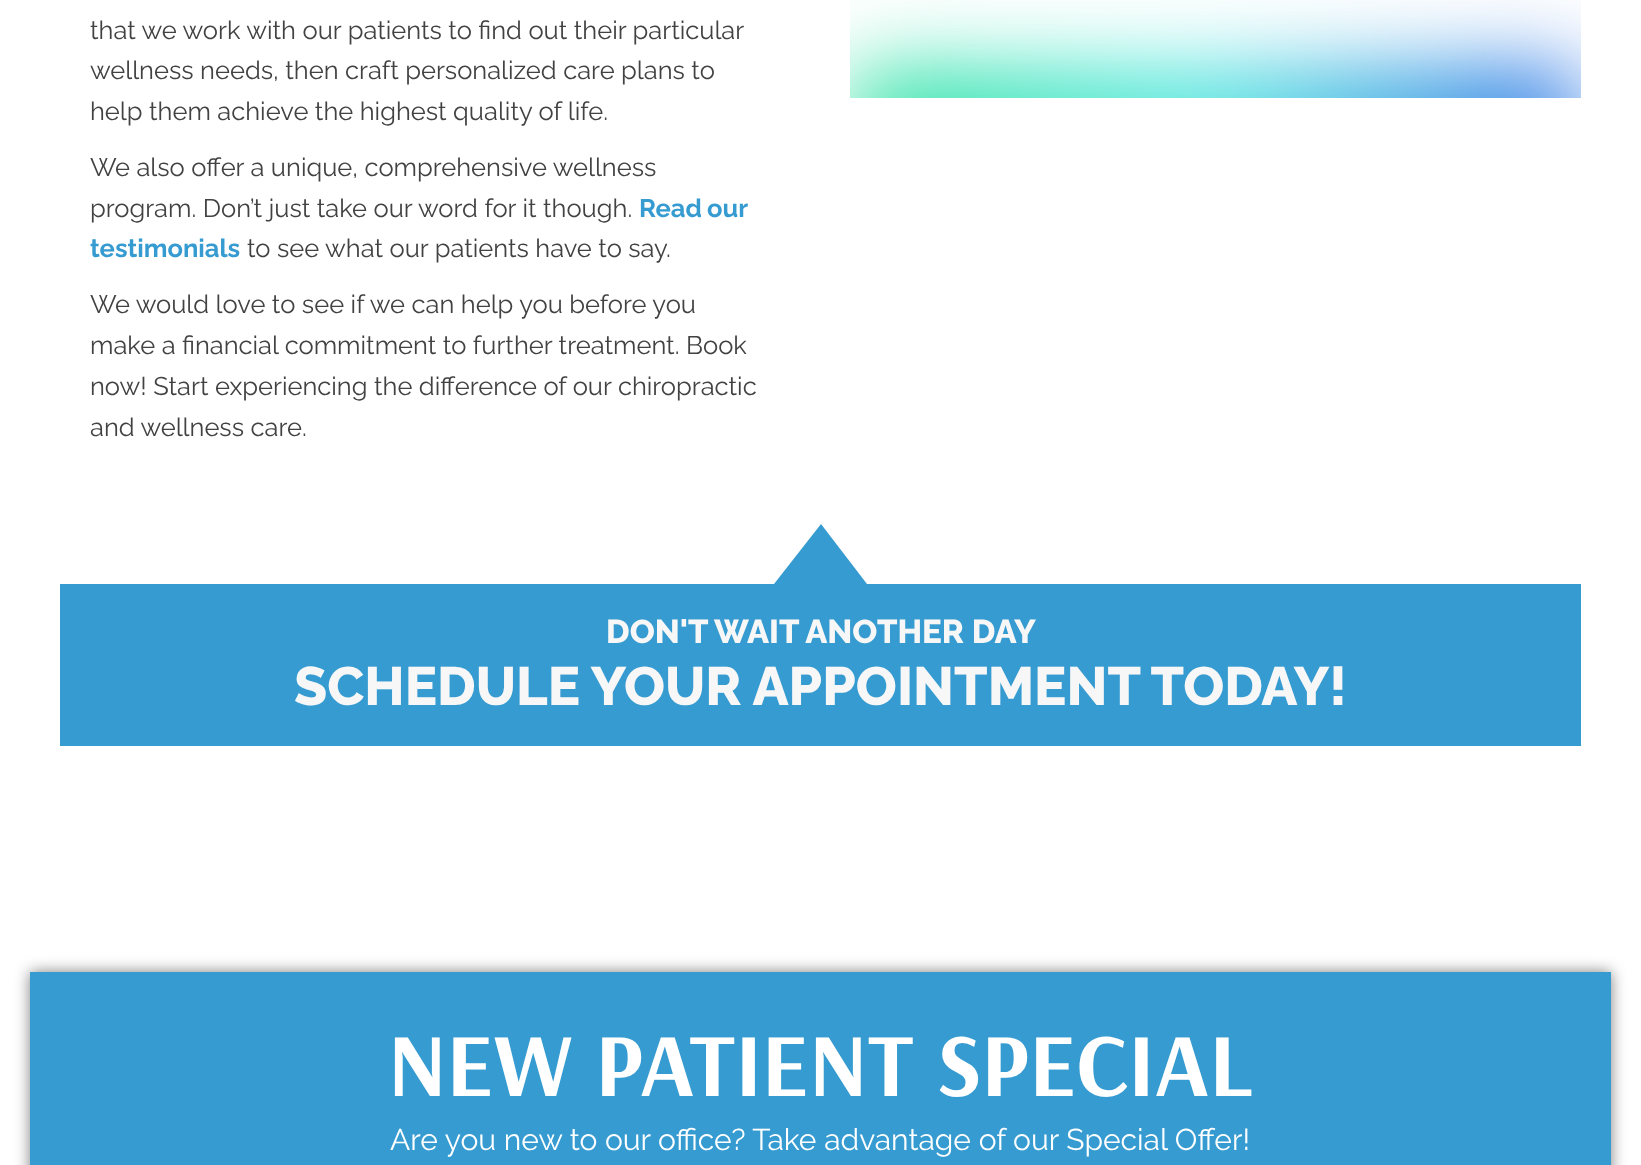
async function draw(canvas) {
  canvas.width = 1641
  canvas.height = 1165
  const ctx = canvas.getContext('2d')
  ctx.miterLimit = 4
  ctx.fontKerning = 'normal'
  async function loadImage(src) {
    const img = new Image()
    img.src = src
    await img.decode()
    return img
  }

  ctx.fillStyle = '#fff'
  ctx.fillRect(0, 0, 1641, 1165)
  ctx.font = '25.5px Raleway'
  ctx.fillStyle = '#424242'
  ctx.fillText('that we work with our patients to find out their particular', 90, 39)
  ctx.fillText('wellness needs, then craft personalized care plans to', 90, 79)
  ctx.fillText('help them achieve the highest quality of life.', 90, 120)
  ctx.fillText('We also offer a unique, comprehensive wellness', 90, 176)
  ctx.fillText('program. Don’t just take our word for it though.', 90, 217)
  ctx.wordSpacing = '-1px'
  ctx.font = 'bold 25.5px Raleway'
  ctx.fillStyle = '#359bd1'
  ctx.fillText('Read our', 639, 217)
  ctx.wordSpacing = '0px'
  ctx.fillText('testimonials', 90, 257)
  ctx.font = '25.5px Raleway'
  ctx.fillStyle = '#424242'
  ctx.fillText('to see what our patients have to say.', 247, 257)
  ctx.fillText('We would love to see if we can help you before you', 90, 313)
  ctx.fillText('make a financial commitment to further treatment. Book', 90, 354)
  ctx.fillText('now! Start experiencing the difference of our chiropractic', 90, 395)
  ctx.fillText('and wellness care.', 90, 436)
  ctx.drawImage(await loadImage('image0.png'), 850, 0, 731, 98)
  ctx.fillStyle = '#359bd1'
  ctx.beginPath()
  ctx.moveTo(867, 584)
  ctx.lineTo(821, 524)
  ctx.lineTo(774, 584)
  ctx.lineTo(821, 584)
  ctx.closePath()
  ctx.fill()
  ctx.fillRect(60, 584, 1521, 162)
  ctx.font = '800 33px Raleway'
  ctx.fillStyle = '#f7f7f7'
  ctx.fillText('DON\'T WAIT ANOTHER DAY', 606, 643)
  ctx.font = '800 54px Raleway'
  ctx.fillText('SCHEDULE YOUR APPOINTMENT TODAY!', 294, 705)
  ctx.fillStyle = '#00000080'
  ctx.filter = 'blur(7.5px)'
  ctx.beginPath()
  ctx.rect(30, 972, 1581, 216)
  ctx.fill()
  ctx.filter = 'none'
  ctx.fillStyle = '#359bd1'
  ctx.fillRect(30, 972, 1581, 193)
  ctx.font = 'bold 90px Arsenal'
  ctx.fillStyle = '#fff'
  ctx.fillText('NEW PATIENT SPECIAL', 388, 1096)
  ctx.font = '30px Raleway'
  ctx.fillText('Are you new to our office? Take advantage of our Special Offer!', 390, 1150)
}

draw(document.querySelector('canvas'))
